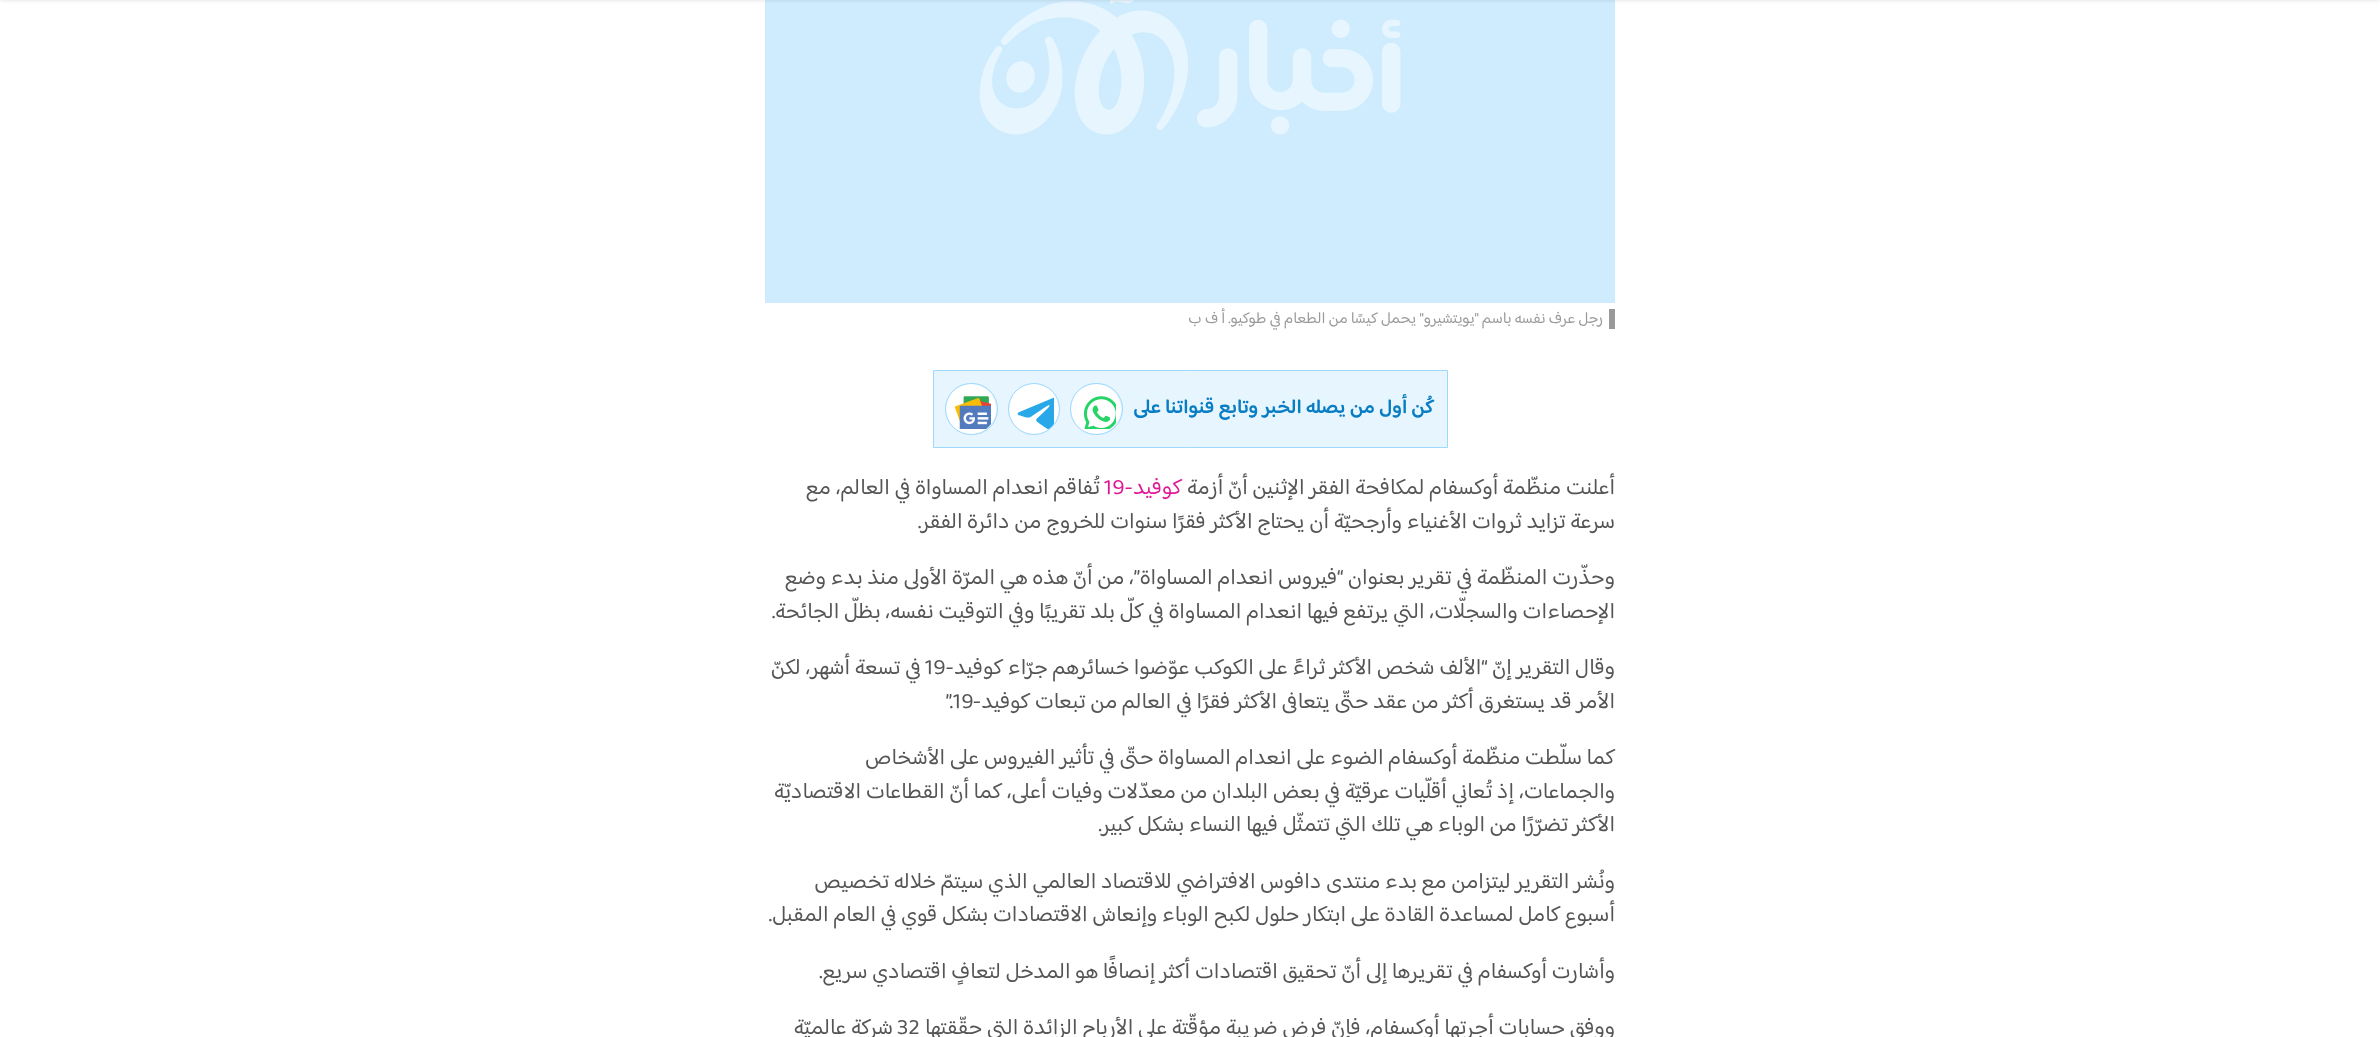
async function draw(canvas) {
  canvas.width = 2380
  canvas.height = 1037
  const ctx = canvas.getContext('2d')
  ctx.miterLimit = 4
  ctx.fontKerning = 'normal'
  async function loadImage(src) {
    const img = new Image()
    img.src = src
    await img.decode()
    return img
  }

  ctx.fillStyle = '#fff'
  ctx.fillRect(0, 0, 2380, 1037)
  ctx.fillStyle = '#ceecfe'
  ctx.fillRect(765, 0, 850, 303)
  ctx.drawImage(await loadImage('image0.png'), 979, 0, 422, 135)
  ctx.fillStyle = '#00000033'
  ctx.filter = 'blur(2.5px)'
  ctx.beginPath()
  ctx.rect(0, -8, 2380, 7)
  ctx.fill()
  ctx.filter = 'none'
  ctx.fillStyle = '#999'
  ctx.fillRect(1609, 309, 6, 20)
  ctx.wordSpacing = '-0.2px'
  ctx.direction = 'rtl'
  ctx.font = '16px "Baloo Bhaijaan 2"'
  ctx.fillText('رجل عرف نفسه باسم "يويتشيرو" يحمل كيسًا من الطعام في طوكيو. أ ف ب', 1603, 323)
  ctx.fillStyle = '#e6f5fe'
  ctx.beginPath()
  ctx.rect(933.5, 370.5, 514, 77)
  ctx.fill()
  ctx.strokeStyle = '#9dd9fd'
  ctx.stroke()
  ctx.wordSpacing = '0px'
  ctx.font = '600 20px "Baloo Bhaijaan 2"'
  ctx.fillStyle = '#087dc3'
  ctx.fillText('كُن أول من يصله الخبر وتابع قنواتنا على', 1434, 413)
  ctx.fillStyle = '#fff'
  ctx.beginPath()
  ctx.arc(1096, 409, 25, 0, 2 * Math.PI)
  ctx.fill()
  ctx.drawImage(await loadImage('image1.png'), 1083, 396, 33, 33)
  ctx.beginPath()
  ctx.roundRect(1070.5, 383.5, 52, 51, 25.5)
  ctx.stroke()
  ctx.beginPath()
  ctx.arc(1034, 409, 25, 0, 2 * Math.PI)
  ctx.fill()
  ctx.drawImage(await loadImage('image2.png'), 1017, 397, 37, 32)
  ctx.beginPath()
  ctx.arc(1034, 409, 25.5, 0, 2 * Math.PI)
  ctx.stroke()
  ctx.beginPath()
  ctx.arc(971, 409, 25, 0, 2 * Math.PI)
  ctx.fill()
  ctx.drawImage(await loadImage('image3.png'), 954, 396, 37, 33)
  ctx.beginPath()
  ctx.roundRect(945.5, 383.5, 52, 51, 25.5)
  ctx.stroke()
  ctx.font = '22.5px "Baloo Bhaijaan 2"'
  ctx.fillStyle = '#555'
  ctx.fillText('أعلنت منظّمة أوكسفام لمكافحة الفقر الإثنين أنّ أزمة', 1615, 494)
  ctx.fillStyle = '#df1995'
  ctx.fillText('كوفيد-', 1182, 494)
  ctx.direction = 'ltr'
  ctx.fillText('19', 1104, 494)
  ctx.direction = 'rtl'
  ctx.fillStyle = '#555'
  ctx.fillText('تُفاقم انعدام المساواة في العالم، مع', 1100, 494)
  ctx.fillText('سرعة تزايد ثروات الأغنياء وأرجحيّة أن يحتاج الأكثر فقرًا سنوات للخروج من دائرة الفقر.', 1615, 528)
  ctx.fillText('وحذّرت المنظّمة في تقرير بعنوان “فيروس انعدام المساواة”، من أنّ هذه هي المرّة الأولى منذ بدء وضع', 1615, 584)
  ctx.fillText('الإحصاءات والسجلّات، التي يرتفع فيها انعدام المساواة في كلّ بلد تقريبًا وفي التوقيت نفسه، بظلّ الجائحة.', 1615, 618)
  ctx.fillText('وقال التقرير إنّ “الألف شخص الأكثر ثراءً على الكوكب عوّضوا خسائرهم جرّاء كوفيد-', 1615, 674)
  ctx.direction = 'ltr'
  ctx.fillText('19', 925, 674)
  ctx.direction = 'rtl'
  ctx.fillText('في تسعة أشهر، لكنّ', 921, 674)
  ctx.fillText('الأمر قد يستغرق أكثر من عقد حتّى يتعافى الأكثر فقرًا في العالم من تبعات كوفيد-', 1615, 708)
  ctx.direction = 'ltr'
  ctx.fillText('”.19', 946, 708)
  ctx.direction = 'rtl'
  ctx.fillText('كما سلّطت منظّمة أوكسفام الضوء على انعدام المساواة حتّى في تأثير الفيروس على الأشخاص', 1615, 764)
  ctx.fillText('والجماعات، إذ تُعاني أقلّيات عرقيّة في بعض البلدان من معدّلات وفيات أعلى، كما أنّ القطاعات الاقتصاديّة', 1615, 798)
  ctx.fillText('الأكثر تضرّرًا من الوباء هي تلك التي تتمثّل فيها النساء بشكل كبير.', 1615, 831)
  ctx.fillText('ونُشر التقرير ليتزامن مع بدء منتدى دافوس الافتراضي للاقتصاد العالمي الذي سيتمّ خلاله تخصيص', 1615, 888)
  ctx.fillText('أسبوع كامل لمساعدة القادة على ابتكار حلول لكبح الوباء وإنعاش الاقتصادات بشكل قوي في العام المقبل.', 1615, 921)
  ctx.fillText('وأشارت أوكسفام في تقريرها إلى أنّ تحقيق اقتصادات أكثر إنصافًا هو المدخل لتعافٍ اقتصادي سريع.', 1615, 978)
  ctx.fillText('ووفق حسابات أجرتها أوكسفام، فإنّ فرض ضريبة مؤقّتة على الأرباح الزائدة التي حقّقتها', 1615, 1034)
  ctx.direction = 'ltr'
  ctx.fillText('32', 897, 1034)
  ctx.direction = 'rtl'
  ctx.fillText('شركة عالميّة', 893, 1034)
}

draw(document.querySelector('canvas'))
